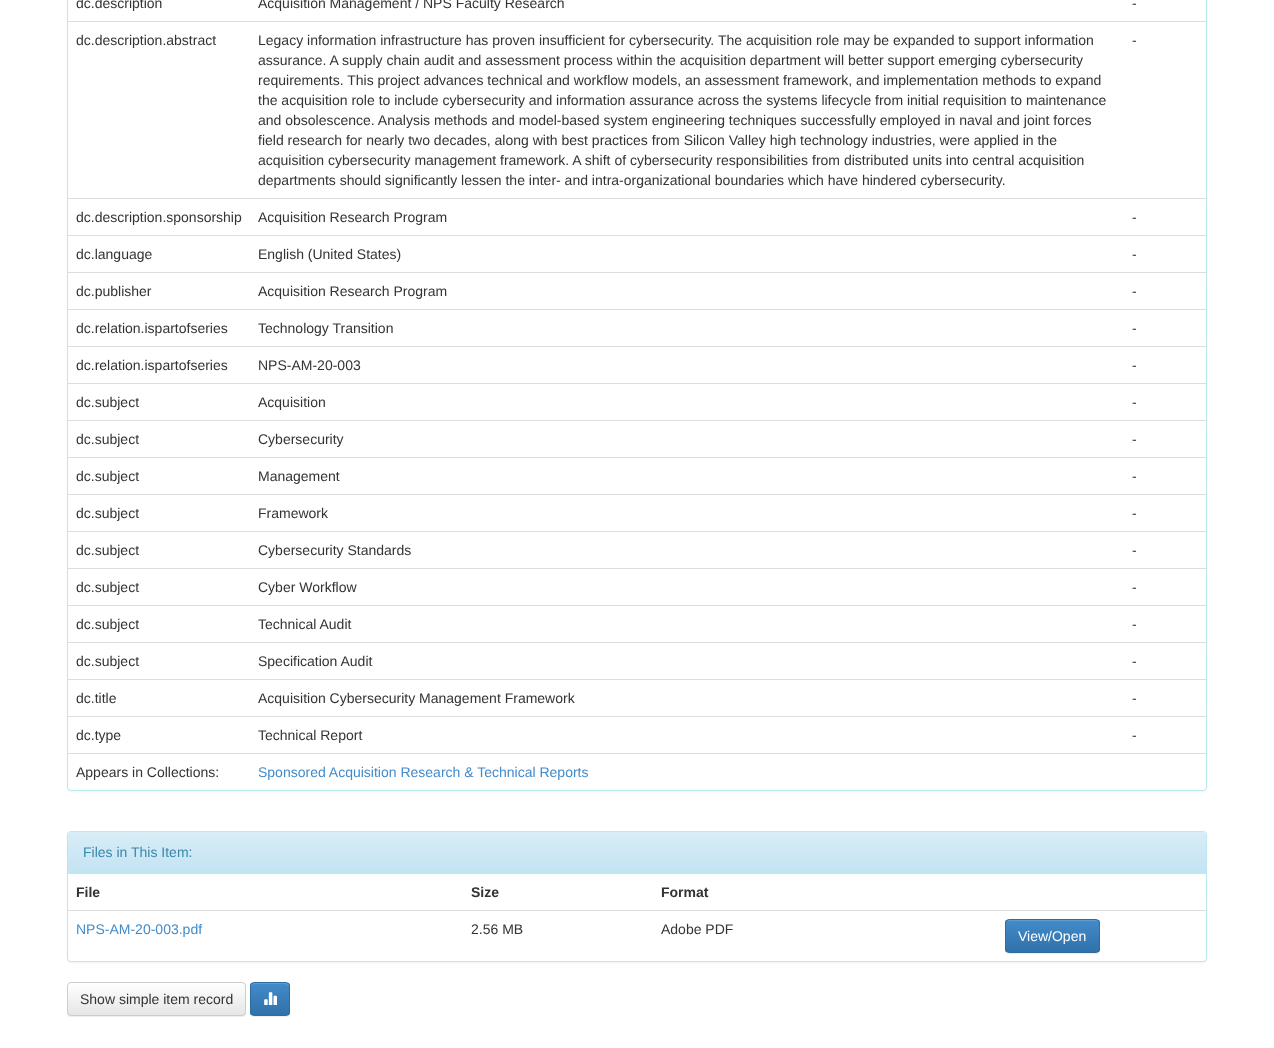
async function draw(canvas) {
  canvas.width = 1274
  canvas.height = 1048
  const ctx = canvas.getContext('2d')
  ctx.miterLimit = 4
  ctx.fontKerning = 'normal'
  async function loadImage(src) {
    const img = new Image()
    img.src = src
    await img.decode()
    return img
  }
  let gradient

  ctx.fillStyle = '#fff'
  ctx.fillRect(0, 0, 1274, 1048)
  ctx.fillStyle = '#0000000d'
  ctx.filter = 'blur(1px)'
  ctx.beginPath()
  ctx.roundRect(67, -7, 1140, 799, 4)
  ctx.fill()
  ctx.filter = 'none'
  ctx.fillStyle = '#fff'
  ctx.beginPath()
  ctx.roundRect(67.5, -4.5, 1139, 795, 3.5)
  ctx.fill()
  ctx.strokeStyle = '#bce8f1'
  ctx.stroke()
  ctx.font = '14px Liberation Sans'
  ctx.fillStyle = '#333'
  ctx.fillText('dc.description', 76, 8)
  ctx.fillText('Acquisition Management / NPS Faculty Research', 258, 8)
  ctx.fillText('-', 1132, 8)
  ctx.fillText('dc.description.abstract', 76, 45)
  ctx.fillText('Legacy information infrastructure has proven insufficient for cybersecurity. The acquisition role may be expanded to support information', 258, 45)
  ctx.fillText('assurance. A supply chain audit and assessment process within the acquisition department will better support emerging cybersecurity', 258, 65)
  ctx.fillText('requirements. This project advances technical and workflow models, an assessment framework, and implementation methods to expand', 258, 85)
  ctx.fillText('the acquisition role to include cybersecurity and information assurance across the systems lifecycle from initial requisition to maintenance', 258, 105)
  ctx.fillText('and obsolescence. Analysis methods and model-based system engineering techniques successfully employed in naval and joint forces', 258, 125)
  ctx.fillText('field research for nearly two decades, along with best practices from Silicon Valley high technology industries, were applied in the', 258, 145)
  ctx.fillText('acquisition cybersecurity management framework. A shift of cybersecurity responsibilities from distributed units into central acquisition', 258, 165)
  ctx.fillText('departments should significantly lessen the inter- and intra-organizational boundaries which have hindered cybersecurity.', 258, 185)
  ctx.fillStyle = '#ddd'
  ctx.fillRect(68, 21, 1139, 1)
  ctx.fillStyle = '#333'
  ctx.fillText('-', 1132, 45)
  ctx.fillText('dc.description.sponsorship', 76, 222)
  ctx.fillText('Acquisition Research Program', 258, 222)
  ctx.fillStyle = '#ddd'
  ctx.fillRect(68, 198, 1139, 1)
  ctx.fillStyle = '#333'
  ctx.fillText('-', 1132, 222)
  ctx.fillText('dc.language', 76, 259)
  ctx.fillText('English (United States)', 258, 259)
  ctx.fillStyle = '#ddd'
  ctx.fillRect(68, 235, 1139, 1)
  ctx.fillStyle = '#333'
  ctx.fillText('-', 1132, 259)
  ctx.fillText('dc.publisher', 76, 296)
  ctx.fillText('Acquisition Research Program', 258, 296)
  ctx.fillStyle = '#ddd'
  ctx.fillRect(68, 272, 1139, 1)
  ctx.fillStyle = '#333'
  ctx.fillText('-', 1132, 296)
  ctx.fillText('dc.relation.ispartofseries', 76, 333)
  ctx.fillText('Technology Transition', 258, 333)
  ctx.fillStyle = '#ddd'
  ctx.fillRect(68, 309, 1139, 1)
  ctx.fillStyle = '#333'
  ctx.fillText('-', 1132, 333)
  ctx.fillText('dc.relation.ispartofseries', 76, 370)
  ctx.fillText('NPS-AM-20-003', 258, 370)
  ctx.fillStyle = '#ddd'
  ctx.fillRect(68, 346, 1139, 1)
  ctx.fillStyle = '#333'
  ctx.fillText('-', 1132, 370)
  ctx.fillText('dc.subject', 76, 407)
  ctx.fillText('Acquisition', 258, 407)
  ctx.fillStyle = '#ddd'
  ctx.fillRect(68, 383, 1139, 1)
  ctx.fillStyle = '#333'
  ctx.fillText('-', 1132, 407)
  ctx.fillText('dc.subject', 76, 444)
  ctx.fillText('Cybersecurity', 258, 444)
  ctx.fillStyle = '#ddd'
  ctx.fillRect(68, 420, 1139, 1)
  ctx.fillStyle = '#333'
  ctx.fillText('-', 1132, 444)
  ctx.fillText('dc.subject', 76, 481)
  ctx.fillText('Management', 258, 481)
  ctx.fillStyle = '#ddd'
  ctx.fillRect(68, 457, 1139, 1)
  ctx.fillStyle = '#333'
  ctx.fillText('-', 1132, 481)
  ctx.fillText('dc.subject', 76, 518)
  ctx.fillText('Framework', 258, 518)
  ctx.fillStyle = '#ddd'
  ctx.fillRect(68, 494, 1139, 1)
  ctx.fillStyle = '#333'
  ctx.fillText('-', 1132, 518)
  ctx.fillText('dc.subject', 76, 555)
  ctx.fillText('Cybersecurity Standards', 258, 555)
  ctx.fillStyle = '#ddd'
  ctx.fillRect(68, 531, 1139, 1)
  ctx.fillStyle = '#333'
  ctx.fillText('-', 1132, 555)
  ctx.fillText('dc.subject', 76, 592)
  ctx.fillText('Cyber Workflow', 258, 592)
  ctx.fillStyle = '#ddd'
  ctx.fillRect(68, 568, 1139, 1)
  ctx.fillStyle = '#333'
  ctx.fillText('-', 1132, 592)
  ctx.fillText('dc.subject', 76, 629)
  ctx.fillText('Technical Audit', 258, 629)
  ctx.fillStyle = '#ddd'
  ctx.fillRect(68, 605, 1139, 1)
  ctx.fillStyle = '#333'
  ctx.fillText('-', 1132, 629)
  ctx.fillText('dc.subject', 76, 666)
  ctx.fillText('Specification Audit', 258, 666)
  ctx.fillStyle = '#ddd'
  ctx.fillRect(68, 642, 1139, 1)
  ctx.fillStyle = '#333'
  ctx.fillText('-', 1132, 666)
  ctx.fillText('dc.title', 76, 703)
  ctx.fillText('Acquisition Cybersecurity Management Framework', 258, 703)
  ctx.fillStyle = '#ddd'
  ctx.fillRect(68, 679, 1139, 1)
  ctx.fillStyle = '#333'
  ctx.fillText('-', 1132, 703)
  ctx.fillText('dc.type', 76, 740)
  ctx.fillText('Technical Report', 258, 740)
  ctx.fillStyle = '#ddd'
  ctx.fillRect(68, 716, 1139, 1)
  ctx.fillStyle = '#333'
  ctx.fillText('-', 1132, 740)
  ctx.fillText('Appears in Collections:', 76, 777)
  ctx.fillStyle = '#ddd'
  ctx.fillRect(68, 753, 1139, 1)
  ctx.fillStyle = '#428bca'
  ctx.fillText('Sponsored Acquisition Research & Technical Reports', 258, 777)
  ctx.fillStyle = '#0000000d'
  ctx.filter = 'blur(1px)'
  ctx.beginPath()
  ctx.roundRect(67, 832, 1140, 131, 4)
  ctx.fill()
  ctx.filter = 'none'
  ctx.fillStyle = '#fff'
  ctx.beginPath()
  ctx.roundRect(67.5, 831.5, 1139, 130, 3.5)
  ctx.fill()
  ctx.stroke()
  gradient = ctx.createLinearGradient(637, 832, 637, 872)
  gradient.addColorStop(0, '#d9edf7')
  gradient.addColorStop(1, '#c4e3f3')
  ctx.fillStyle = gradient
  ctx.beginPath()
  ctx.roundRect(68, 832, 1138, 40, [3, 3, 0, 0])
  ctx.fill()
  ctx.fillStyle = '#bce8f1'
  ctx.fillRect(68, 872, 1138, 1)
  ctx.fillStyle = '#3a87ad'
  ctx.fillText('Files in This Item:', 83, 857)
  ctx.fillStyle = '#ddd'
  ctx.fillRect(68, 873, 1139, 1)
  ctx.font = 'bold 14px Liberation Sans'
  ctx.fillStyle = '#333'
  ctx.fillText('File', 76, 897)
  ctx.fillText('Size', 471, 897)
  ctx.fillText('Format', 661, 897)
  ctx.font = '14px Liberation Sans'
  ctx.fillStyle = '#428bca'
  ctx.fillText('NPS-AM-20-003.pdf', 76, 934)
  ctx.fillStyle = '#333'
  ctx.fillText('2.56 MB', 471, 934)
  ctx.fillText('Adobe PDF', 661, 934)
  ctx.fillStyle = '#ddd'
  ctx.fillRect(68, 910, 1139, 1)
  ctx.fillStyle = '#00000012'
  ctx.filter = 'blur(0.5px)'
  ctx.beginPath()
  ctx.roundRect(1005, 920, 95, 34, 4)
  ctx.fill()
  ctx.filter = 'none'
  ctx.save()
  ctx.beginPath()
  ctx.roundRect(1005, 919, 95, 34, 4)
  ctx.clip()
  gradient = ctx.createLinearGradient(1053, 920, 1053, 952)
  gradient.addColorStop(0, '#428bca')
  gradient.addColorStop(1, '#3071a9')
  ctx.fillStyle = gradient
  ctx.fillRect(1005, 920, 95, 32)
  ctx.restore()
  ctx.fillStyle = '#5e9cd1'
  ctx.beginPath()
  ctx.moveTo(1009, 921)
  ctx.lineTo(1096, 921)
  ctx.bezierCurveTo(1098, 921, 1099, 922, 1099, 924)
  ctx.bezierCurveTo(1099, 916, 1085, 920, 1082, 920)
  ctx.lineTo(1024, 920)
  ctx.bezierCurveTo(1020, 920, 1006, 916, 1006, 924)
  ctx.bezierCurveTo(1006, 922, 1007, 921, 1009, 921)
  ctx.closePath()
  ctx.fill()
  ctx.beginPath()
  ctx.roundRect(1005.5, 919.5, 94, 33, 3.5)
  ctx.strokeStyle = '#2d6ca2'
  ctx.stroke()
  ctx.fillStyle = '#fff'
  ctx.fillText('View/Open', 1018, 941)
  ctx.fillStyle = '#00000012'
  ctx.filter = 'blur(0.5px)'
  ctx.beginPath()
  ctx.roundRect(67, 983, 179, 34, 4)
  ctx.fill()
  ctx.filter = 'none'
  ctx.save()
  ctx.beginPath()
  ctx.roundRect(67, 982, 179, 34, 4)
  ctx.clip()
  gradient = ctx.createLinearGradient(157, 983, 157, 1015)
  gradient.addColorStop(0, '#fff')
  gradient.addColorStop(1, '#e6e6e6')
  ctx.fillStyle = gradient
  ctx.fillRect(67, 983, 179, 32)
  ctx.restore()
  ctx.beginPath()
  ctx.roundRect(67.5, 982.5, 178, 33, 3.5)
  ctx.strokeStyle = '#ccc'
  ctx.stroke()
  ctx.fillStyle = '#333'
  ctx.fillText('Show simple item record', 80, 1004)
  ctx.fillStyle = '#00000012'
  ctx.filter = 'blur(0.5px)'
  ctx.beginPath()
  ctx.roundRect(250, 983, 40, 34, 4)
  ctx.fill()
  ctx.filter = 'none'
  ctx.save()
  ctx.beginPath()
  ctx.roundRect(250, 982, 40, 34, 4)
  ctx.clip()
  gradient = ctx.createLinearGradient(270, 983, 270, 1015)
  gradient.addColorStop(0, '#428bca')
  gradient.addColorStop(1, '#3071a9')
  ctx.fillStyle = gradient
  ctx.fillRect(250, 983, 40, 32)
  ctx.restore()
  ctx.fillStyle = '#5e9cd1'
  ctx.beginPath()
  ctx.moveTo(254, 984)
  ctx.lineTo(281, 984)
  ctx.bezierCurveTo(286.5, 984, 288.5, 984.5, 289, 986.5)
  ctx.bezierCurveTo(289, 981.5, 284.5, 983, 280.5, 983)
  ctx.lineTo(259.5, 983)
  ctx.bezierCurveTo(256, 983, 251, 982, 251, 986.5)
  ctx.bezierCurveTo(251.5, 985, 252.5, 984, 254, 984)
  ctx.closePath()
  ctx.fill()
  ctx.beginPath()
  ctx.roundRect(250.5, 982.5, 39, 33, 3.5)
  ctx.strokeStyle = '#2d6ca2'
  ctx.stroke()
  ctx.drawImage(await loadImage('image0.png'), 264, 992, 13, 13)
}

draw(document.querySelector('canvas'))
